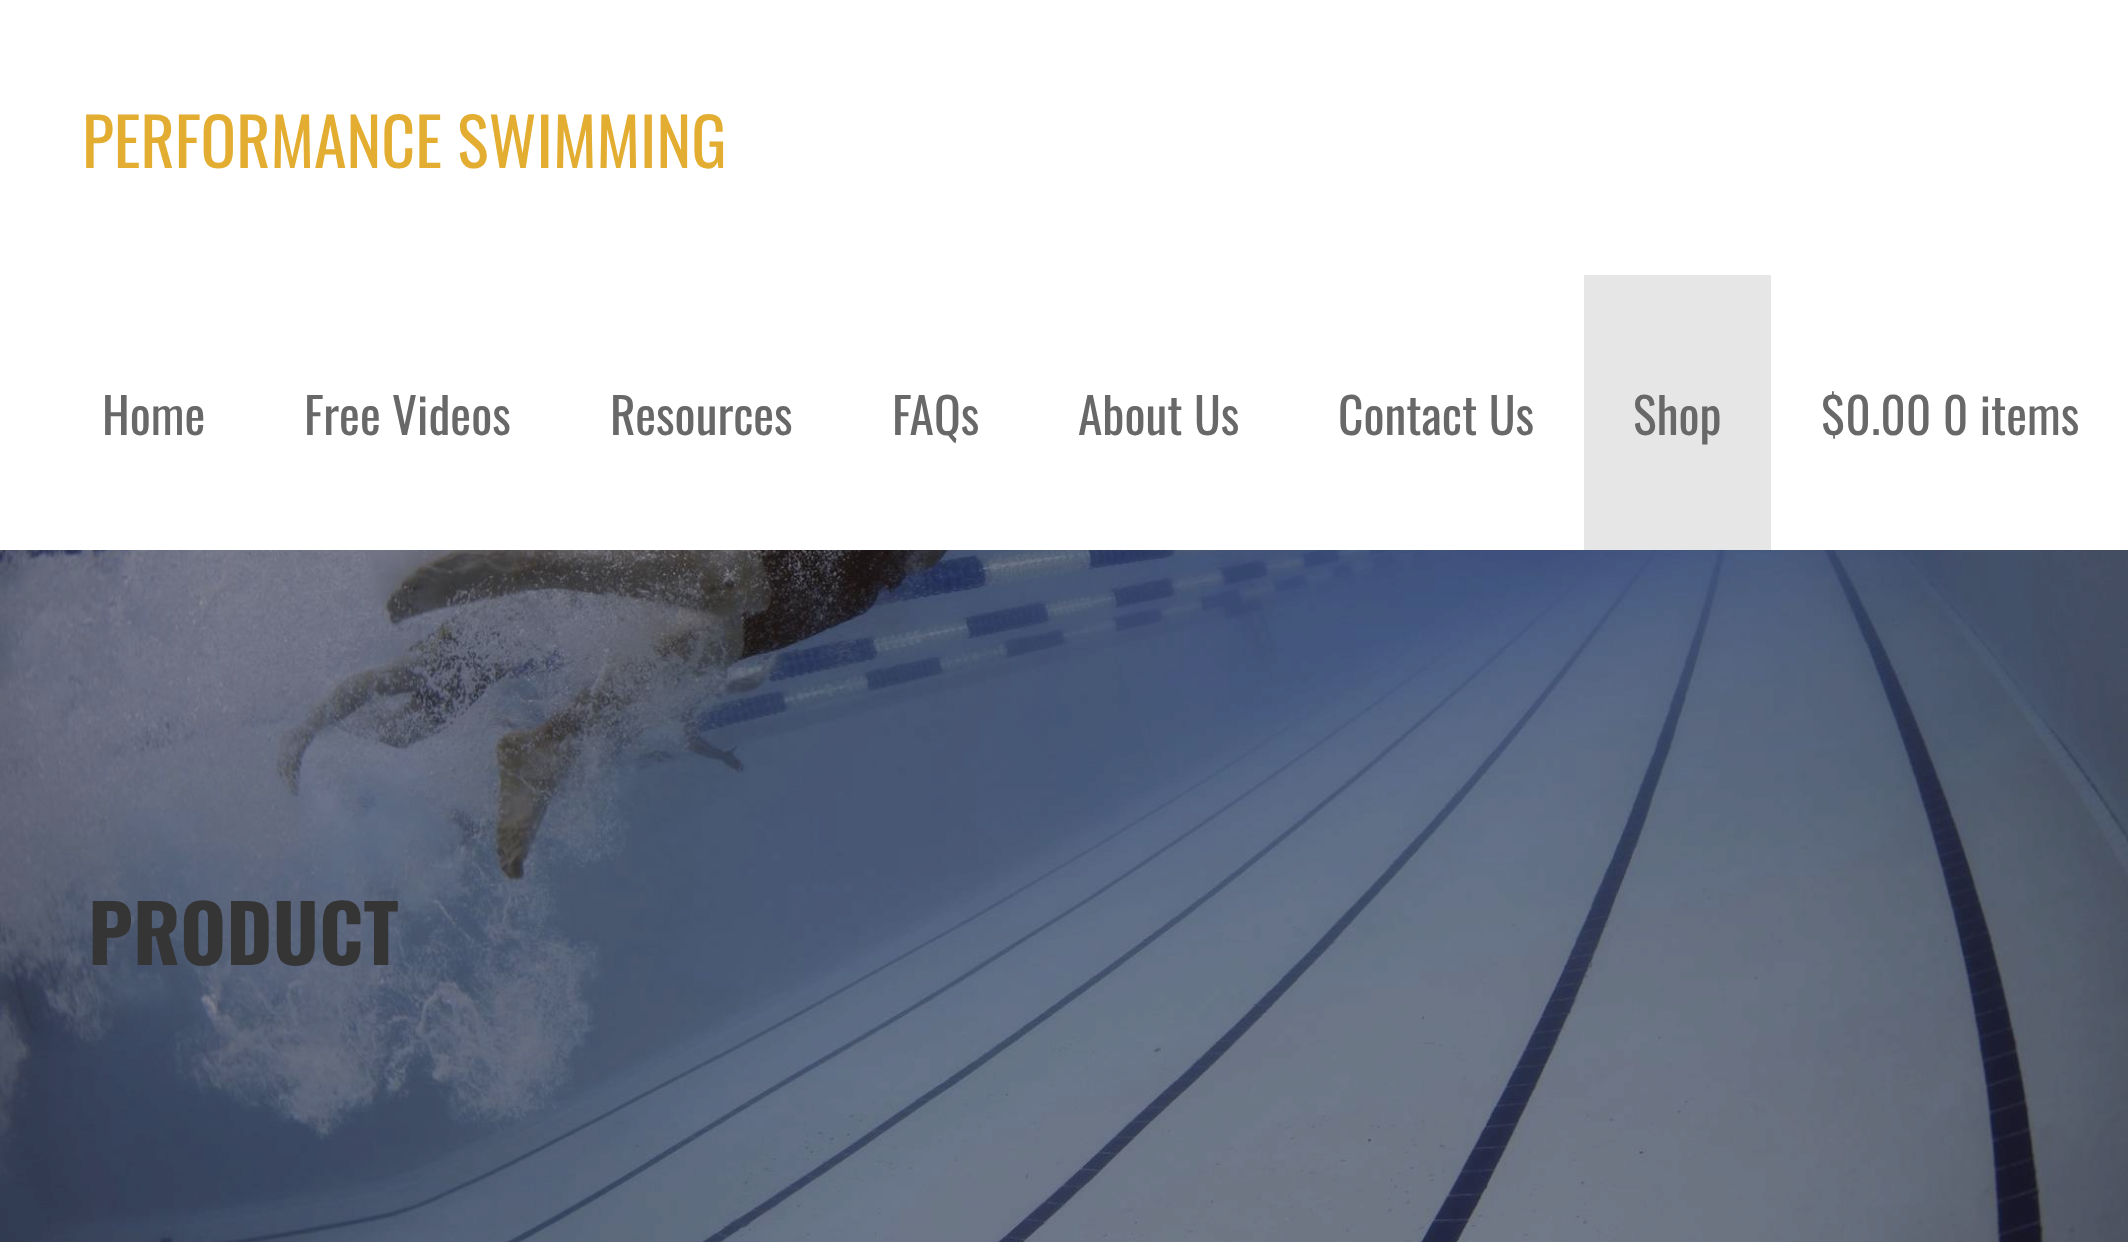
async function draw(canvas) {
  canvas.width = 2128
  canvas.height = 1242
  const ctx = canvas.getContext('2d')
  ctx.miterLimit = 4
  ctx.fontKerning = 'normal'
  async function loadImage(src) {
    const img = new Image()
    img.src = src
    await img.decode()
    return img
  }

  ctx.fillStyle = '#fff'
  ctx.fillRect(0, 0, 2128, 1242)
  ctx.font = '66px Oswald'
  ctx.fillStyle = '#e3ad31'
  ctx.fillText('PERFORMANCE SWIMMING', 82, 168)
  ctx.font = '49.5px Oswald'
  ctx.fillStyle = '#686868'
  ctx.fillText('Home', 102, 435)
  ctx.fillText('Free Videos', 304, 435)
  ctx.fillText('Resources', 610, 435)
  ctx.fillText('FAQs', 892, 435)
  ctx.fillText('About Us', 1078, 435)
  ctx.fillText('Contact Us', 1338, 435)
  ctx.fillStyle = '#e6e6e6'
  ctx.fillRect(1584, 275, 187, 275)
  ctx.fillStyle = '#686868'
  ctx.fillText('Shop', 1633, 435)
  ctx.fillText('$0.00 0 items', 1821, 435)
  ctx.drawImage(await loadImage('image0.png'), 0, 550, 2128, 692)
  ctx.font = 'bold 79px Oswald'
  ctx.fillStyle = '#353535'
  ctx.fillText('PRODUCT', 88, 965)
}

draw(document.querySelector('canvas'))
